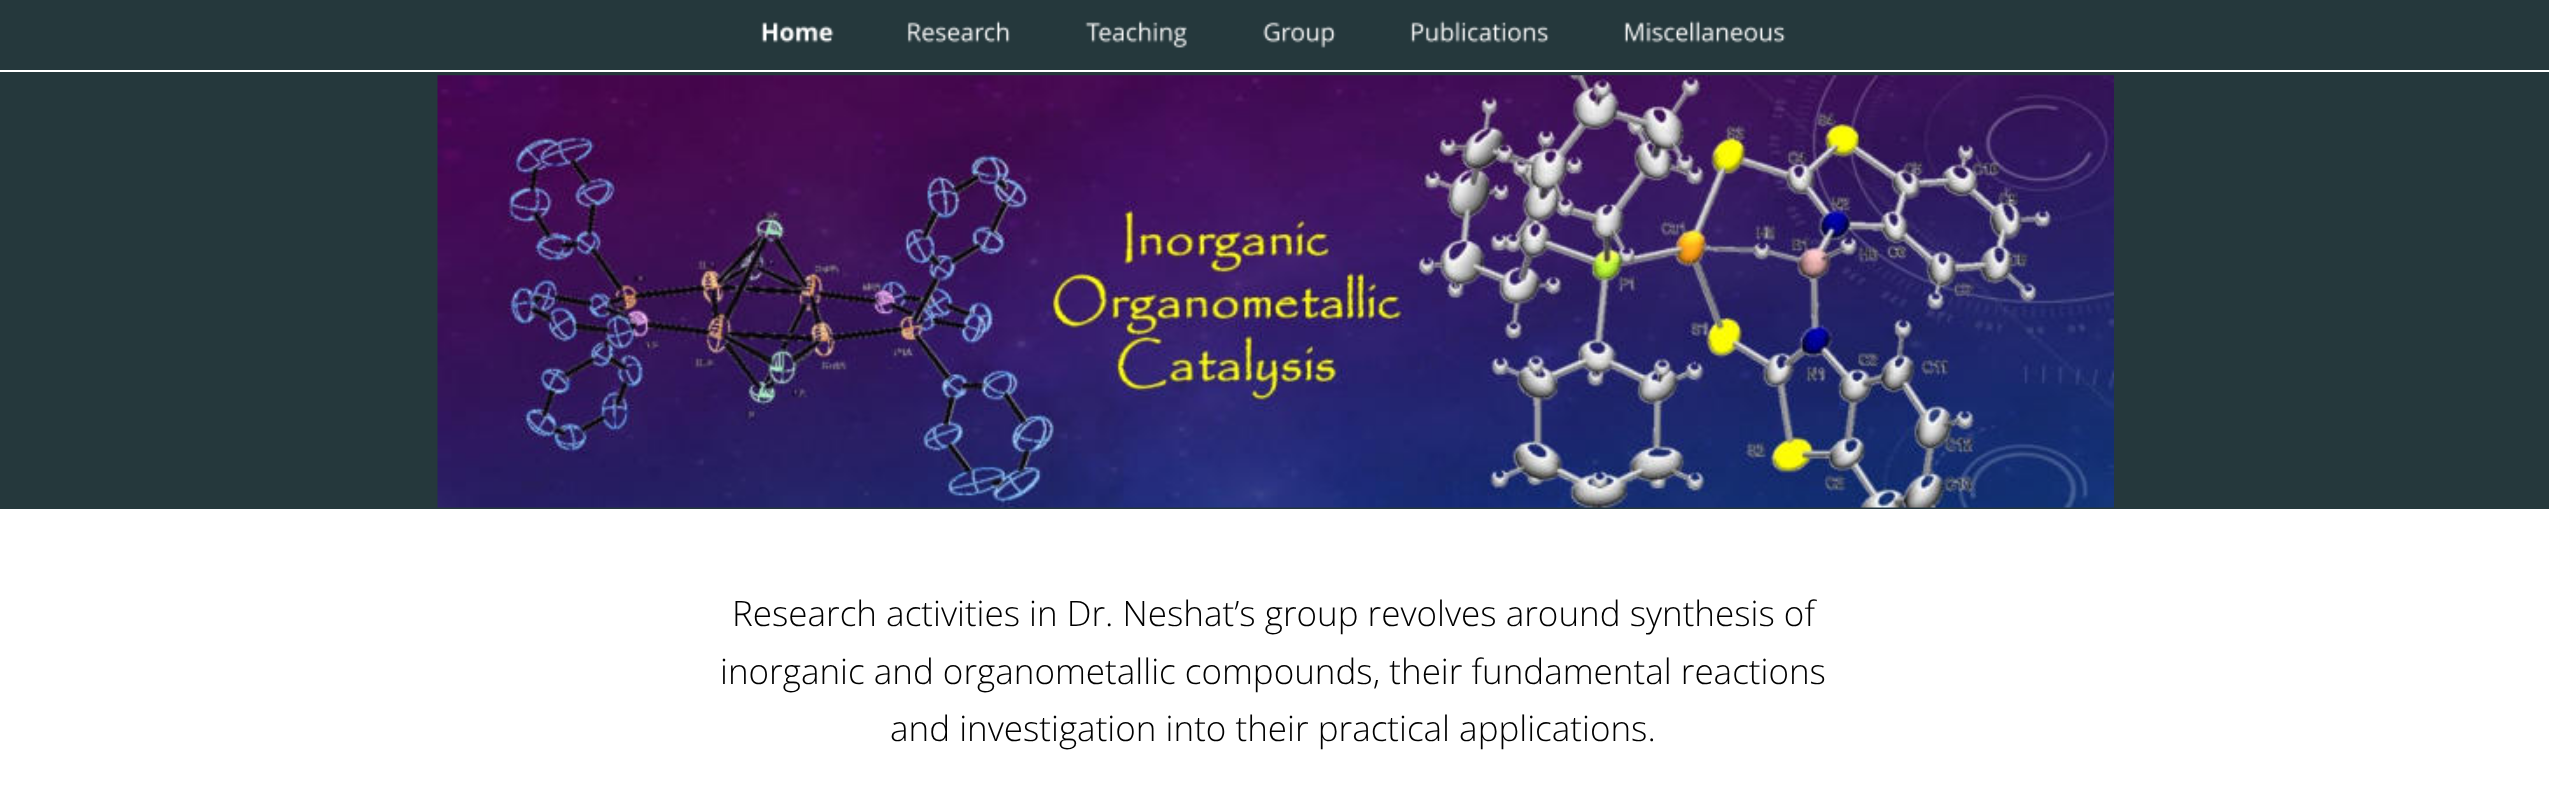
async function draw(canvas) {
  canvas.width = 2549
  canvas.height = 787
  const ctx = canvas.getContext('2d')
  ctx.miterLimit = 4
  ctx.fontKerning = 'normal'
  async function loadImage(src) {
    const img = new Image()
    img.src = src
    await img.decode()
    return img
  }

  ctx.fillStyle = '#fff'
  ctx.fillRect(0, 0, 2549, 787)
  ctx.fillStyle = '#25383c'
  ctx.fillRect(0, 0, 2549, 70)
  ctx.fillRect(0, 72, 2549, 437)
  ctx.drawImage(await loadImage('image0.png'), 761, 22, 73, 21)
  ctx.drawImage(await loadImage('image1.png'), 907, 20, 103, 23)
  ctx.drawImage(await loadImage('image2.png'), 1085, 20, 102, 28)
  ctx.drawImage(await loadImage('image3.png'), 1263, 22, 73, 26)
  ctx.drawImage(await loadImage('image4.png'), 1410, 20, 139, 23)
  ctx.drawImage(await loadImage('image5.png'), 1624, 20, 162, 23)
  ctx.drawImage(await loadImage('image6.png'), 437, 75, 1677, 433)
  ctx.font = '300 35px Open Sans'
  ctx.fillStyle = '#000'
  ctx.fillText('Research activities in Dr. Neshat’s group revolves around synthesis of', 732, 626)
  ctx.fillText('inorganic and organometallic compounds, their fundamental reactions', 720, 684)
  ctx.fillText('and investigation into their practical applications.', 890, 741)
}

draw(document.querySelector('canvas'))
